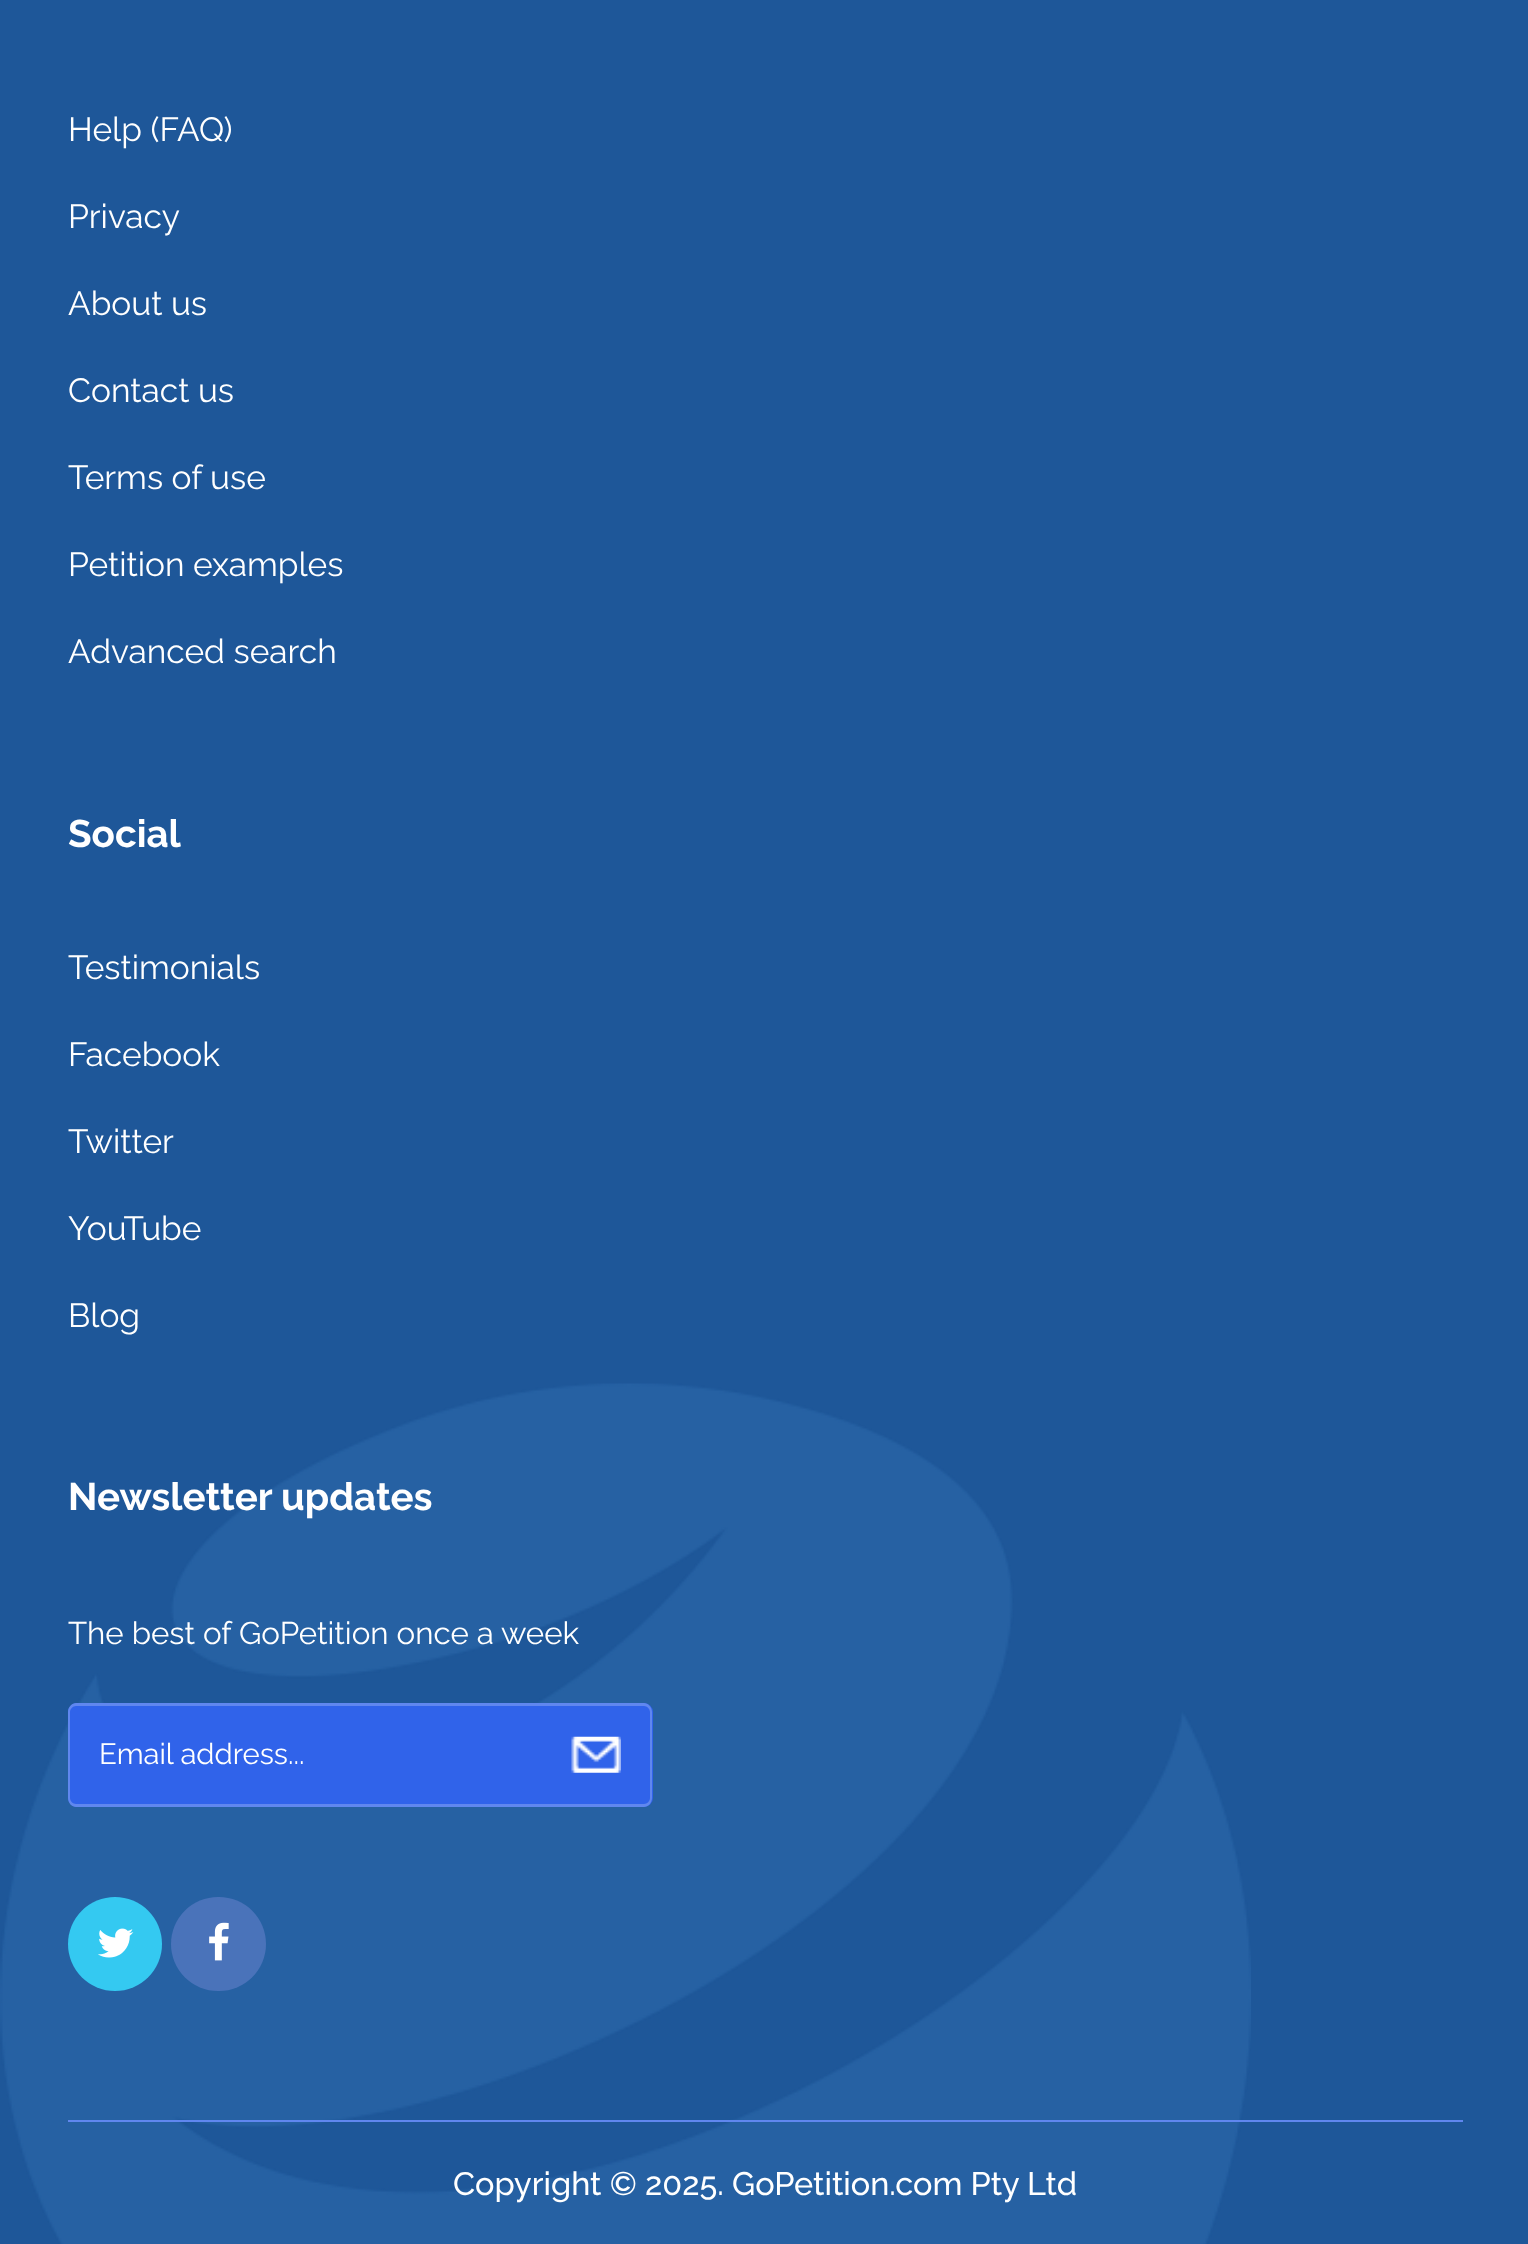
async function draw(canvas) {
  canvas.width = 1528
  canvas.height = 2244
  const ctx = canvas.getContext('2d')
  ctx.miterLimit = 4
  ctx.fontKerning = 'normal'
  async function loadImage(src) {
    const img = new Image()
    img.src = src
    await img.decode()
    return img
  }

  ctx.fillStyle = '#1e5799'
  ctx.fillRect(0, 0, 1528, 2244)
  ctx.drawImage(await loadImage('image0.png'), 0, 1383, 1251, 861)
  ctx.font = '33.5px Raleway'
  ctx.fillStyle = '#fff'
  ctx.fillText('Help (FAQ)', 68, 141)
  ctx.fillText('Privacy', 68, 228)
  ctx.fillText('About us', 68, 315)
  ctx.fillText('Contact us', 68, 402)
  ctx.fillText('Terms of use', 68, 489)
  ctx.fillText('Petition examples', 68, 576)
  ctx.fillText('Advanced search', 68, 663)
  ctx.font = 'bold 38.5px Raleway'
  ctx.fillText('Social', 68, 847)
  ctx.font = '33.5px Raleway'
  ctx.fillText('Testimonials', 68, 979)
  ctx.fillText('Facebook', 68, 1066)
  ctx.fillText('Twitter', 68, 1153)
  ctx.fillText('YouTube', 68, 1240)
  ctx.fillText('Blog', 68, 1327)
  ctx.font = 'bold 38.5px Raleway'
  ctx.fillText('Newsletter updates', 68, 1510)
  ctx.font = '31.3px Raleway'
  ctx.fillText('The best of GoPetition once a week', 68, 1644)
  ctx.fillStyle = '#3063ea'
  ctx.beginPath()
  ctx.roundRect(68, 1703, 472, 104, [9, 0, 0, 9])
  ctx.fill()
  ctx.fillStyle = '#6087ef'
  ctx.beginPath()
  ctx.moveTo(76, 1703)
  ctx.lineTo(540, 1703)
  ctx.lineTo(540, 1807)
  ctx.lineTo(76, 1807)
  ctx.bezierCurveTo(72, 1807, 68, 1803, 68, 1798)
  ctx.lineTo(68, 1712)
  ctx.bezierCurveTo(68, 1707, 72, 1703, 76, 1703)
  ctx.closePath()
  ctx.moveTo(76, 1706)
  ctx.lineTo(540, 1706)
  ctx.lineTo(540, 1804)
  ctx.lineTo(76, 1804)
  ctx.bezierCurveTo(73, 1804, 70, 1801, 70, 1798)
  ctx.lineTo(70, 1712)
  ctx.bezierCurveTo(70, 1709, 73, 1706, 76, 1706)
  ctx.closePath()
  ctx.fill('evenodd')
  ctx.font = '29.25px Raleway'
  ctx.fillStyle = '#fff'
  ctx.fillText('Email address...', 99, 1764)
  ctx.fillStyle = '#3063ea'
  ctx.beginPath()
  ctx.roundRect(540, 1703, 113, 104, [0, 9, 9, 0])
  ctx.fill()
  ctx.fillStyle = '#6087ef'
  ctx.beginPath()
  ctx.moveTo(540, 1703)
  ctx.lineTo(644, 1703)
  ctx.bezierCurveTo(648, 1703, 652, 1707, 652, 1712)
  ctx.lineTo(652, 1798)
  ctx.bezierCurveTo(652, 1803, 648, 1807, 644, 1807)
  ctx.lineTo(540, 1807)
  ctx.closePath()
  ctx.moveTo(540, 1706)
  ctx.lineTo(644, 1706)
  ctx.bezierCurveTo(647, 1706, 650, 1709, 650, 1712)
  ctx.lineTo(650, 1798)
  ctx.bezierCurveTo(650, 1801, 647, 1804, 644, 1804)
  ctx.lineTo(540, 1804)
  ctx.closePath()
  ctx.fill('evenodd')
  ctx.drawImage(await loadImage('image1.png'), 571, 1736, 50, 37)
  ctx.fillStyle = '#34c9f1'
  ctx.beginPath()
  ctx.arc(115, 1944, 47, 0, 2 * Math.PI)
  ctx.fill()
  ctx.drawImage(await loadImage('image2.png'), 98, 1928, 36, 30)
  ctx.fillStyle = '#4a73ba'
  ctx.beginPath()
  ctx.roundRect(171, 1897, 95, 94, 47)
  ctx.fill()
  ctx.drawImage(await loadImage('image3.png'), 209, 1922, 20, 39)
  ctx.fillStyle = '#6087ef'
  ctx.fillRect(68, 2120, 1395, 2)
  ctx.font = '500 32.4px Raleway'
  ctx.fillStyle = '#fff'
  ctx.fillText('Copyright © 2025. GoPetition.com Pty Ltd', 453, 2195)
}

draw(document.querySelector('canvas'))
